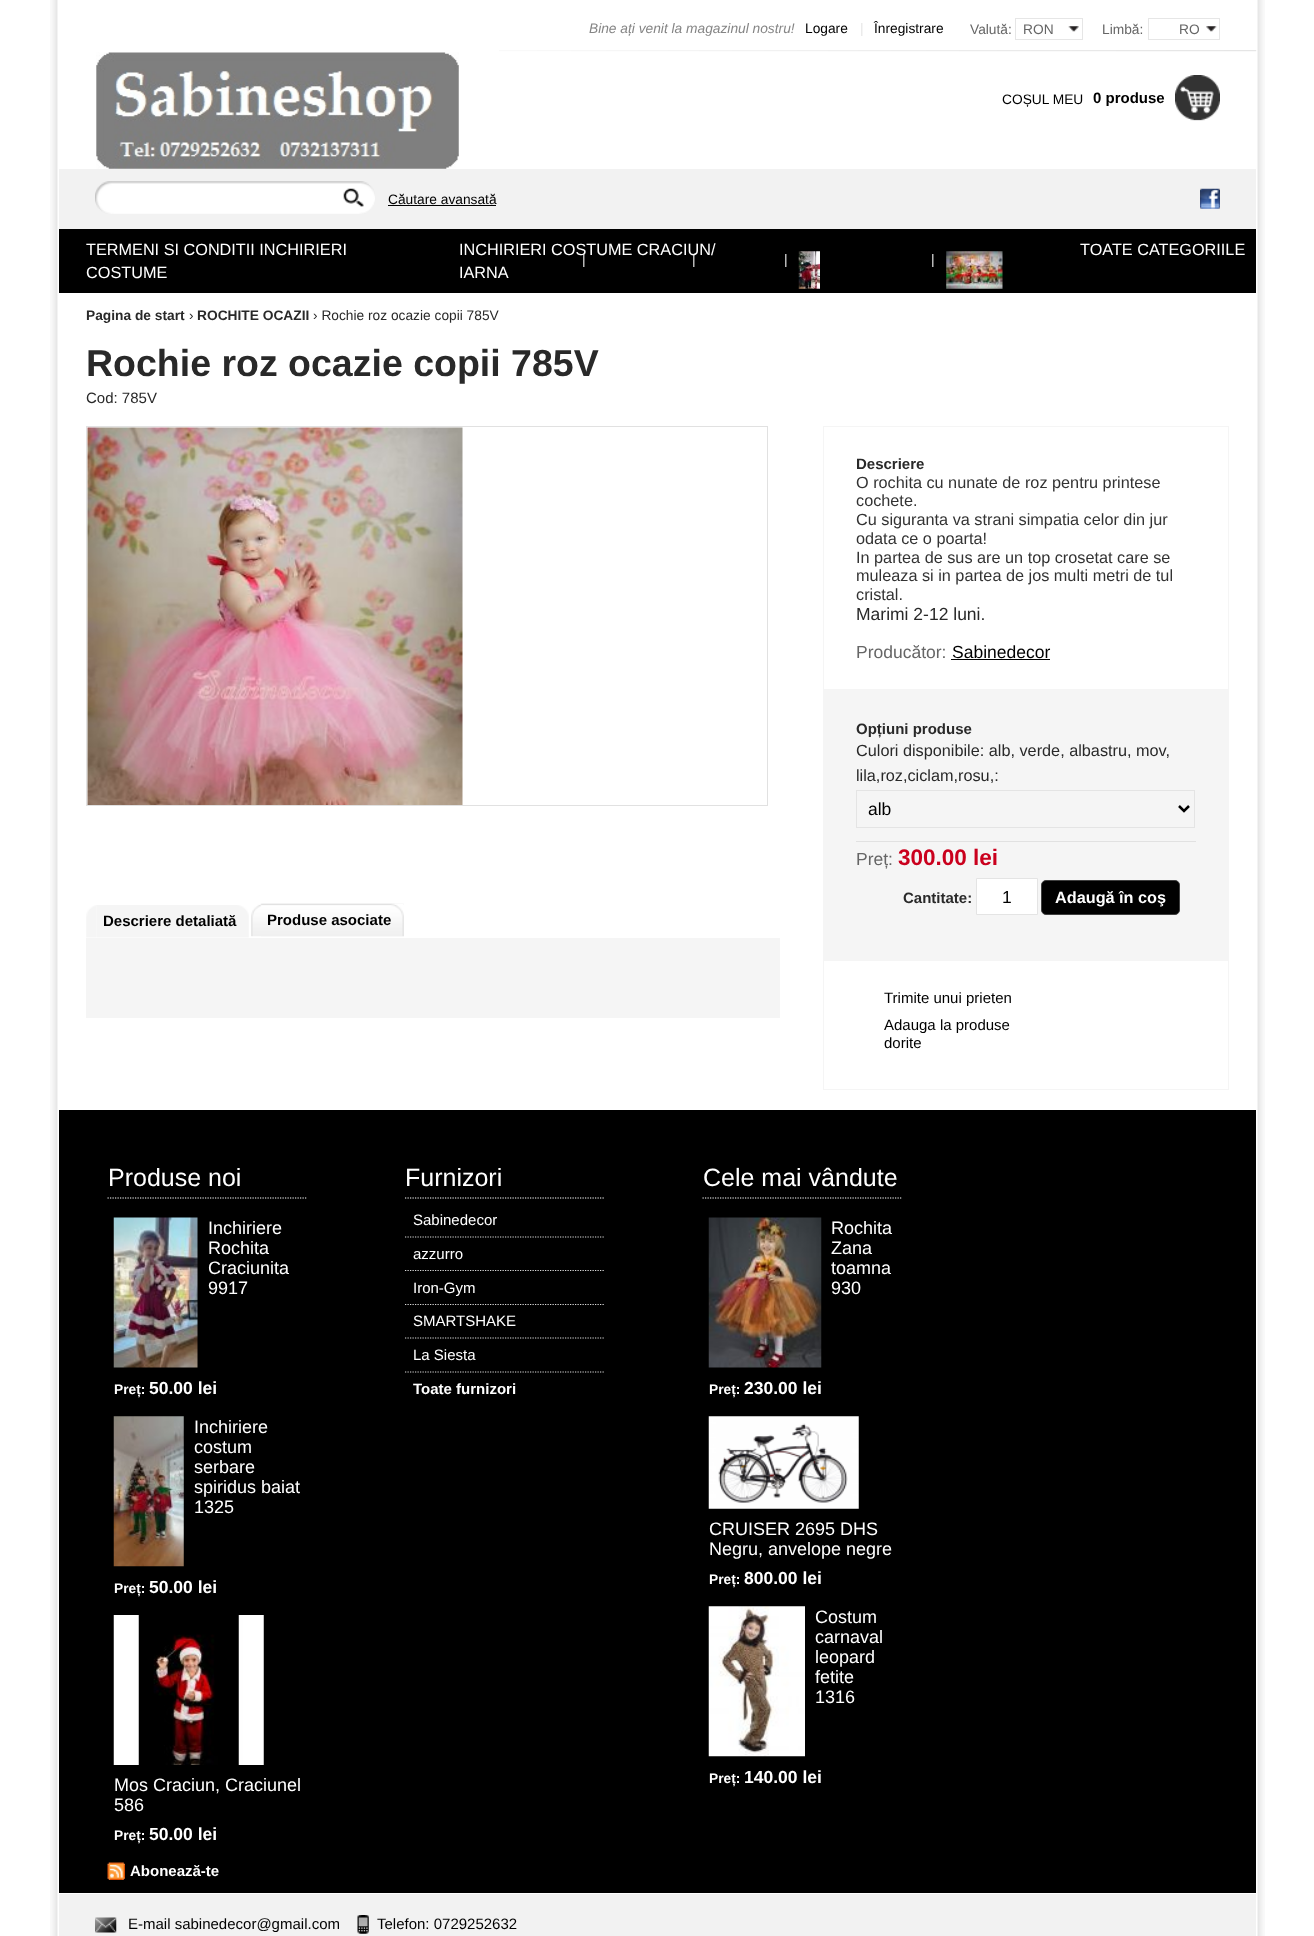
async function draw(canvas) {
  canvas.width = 1314
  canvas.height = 1936
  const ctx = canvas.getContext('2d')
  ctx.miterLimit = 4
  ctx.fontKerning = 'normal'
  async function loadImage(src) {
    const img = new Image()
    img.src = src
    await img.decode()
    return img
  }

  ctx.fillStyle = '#fff'
  ctx.fillRect(0, 0, 1314, 1936)
  ctx.drawImage(await loadImage('image0.png'), 50, 0, 1215, 1936)
  ctx.drawImage(await loadImage('image1.png'), 499, 50, 758, 2)
  ctx.font = 'italic 13.75px Liberation Sans'
  ctx.fillStyle = '#858585'
  ctx.fillText('Bine ați venit la magazinul nostru!', 589, 33)
  ctx.font = '13.75px Liberation Sans'
  ctx.fillStyle = '#000'
  ctx.fillText('Logare', 805, 33)
  ctx.fillStyle = '#e6e6e6'
  ctx.fillText('|', 860, 33)
  ctx.fillStyle = '#000'
  ctx.fillText('Înregistrare', 874, 33)
  ctx.fillStyle = '#666'
  ctx.fillText('Valută:', 970, 34)
  ctx.drawImage(await loadImage('image2.png'), 1068, 26, 11, 6)
  ctx.strokeStyle = '#e6e6e6'
  ctx.strokeRect(1015.5, 18.5, 67, 21)
  ctx.fillText('RON', 1023, 34)
  ctx.fillText('Limbă:', 1102, 34)
  ctx.drawImage(await loadImage('image3.png'), 1206, 26, 11, 6)
  ctx.strokeRect(1148.5, 18.5, 71, 21)
  ctx.fillText('RO', 1179, 34)
  ctx.drawImage(await loadImage('image4.png'), 96, 52, 363, 117)
  ctx.fillStyle = '#000'
  ctx.fillText('COȘUL MEU', 1002, 104)
  ctx.font = 'bold 15px Liberation Sans'
  ctx.fillText('0 produse', 1093, 103)
  ctx.drawImage(await loadImage('image5.png'), 1175, 75, 45, 46)
  ctx.fillStyle = '#f2f2f2'
  ctx.fillRect(59, 169, 1197, 60)
  ctx.drawImage(await loadImage('image6.png'), 95, 181, 280, 33)
  ctx.drawImage(await loadImage('image7.png'), 343, 188, 21, 19)
  ctx.font = '13.75px Liberation Sans'
  ctx.fillStyle = '#000'
  ctx.fillText('Căutare avansată', 388, 204)
  ctx.fillRect(388, 205, 108, 1)
  ctx.drawImage(await loadImage('image8.png'), 1200, 188, 20, 21)
  ctx.fillRect(59, 229, 1197, 64)
  ctx.fillStyle = '#e6e6e6'
  ctx.fillText('|', 582, 264)
  ctx.fillText('|', 692, 264)
  ctx.fillText('|', 784, 264)
  ctx.drawImage(await loadImage('image9.png'), 798, 251, 22, 38)
  ctx.fillText('|', 931, 264)
  ctx.drawImage(await loadImage('image10.png'), 946, 251, 57, 38)
  ctx.font = '16.25px Liberation Sans'
  ctx.fillStyle = '#fff'
  ctx.fillText('TERMENI SI CONDITII INCHIRIERI', 86, 255)
  ctx.fillText('COSTUME', 86, 278)
  ctx.fillText('INCHIRIERI COSTUME CRACIUN/', 459, 255)
  ctx.fillText('IARNA', 459, 278)
  ctx.fillText('TOATE CATEGORIILE', 1080, 255)
  ctx.font = 'bold 13.75px Liberation Sans'
  ctx.fillStyle = '#292929'
  ctx.fillText('Pagina de start', 86, 320)
  ctx.font = '13.75px Liberation Sans'
  ctx.fillText('›', 189, 320)
  ctx.font = 'bold 13.75px Liberation Sans'
  ctx.fillText('ROCHITE OCAZII', 197, 320)
  ctx.font = '13.75px Liberation Sans'
  ctx.fillText('› Rochie roz ocazie copii 785V', 313, 320)
  ctx.font = 'bold 37.5px Liberation Sans'
  ctx.fillText('Rochie roz ocazie copii 785V', 86, 376)
  ctx.font = '15px Liberation Sans'
  ctx.fillText('Cod: 785V', 86, 403)
  ctx.strokeStyle = '#e1e1e1'
  ctx.strokeRect(86.5, 426.5, 681, 379)
  ctx.drawImage(await loadImage('image11.png'), 87, 427, 376, 378)
  ctx.strokeStyle = '#f5f5f5'
  ctx.strokeRect(823.5, 426.5, 405, 263)
  ctx.font = 'bold 15px Liberation Sans'
  ctx.fillText('Descriere', 856, 469)
  ctx.font = '16.25px Liberation Sans'
  ctx.fillStyle = '#333'
  ctx.fillText('O rochita cu nunate de roz pentru printese', 856, 488)
  ctx.fillText('cochete.', 856, 506)
  ctx.fillText('Cu siguranta va strani simpatia celor din jur', 856, 525)
  ctx.fillText('odata ce o poarta!', 856, 544)
  ctx.fillText('In partea de sus are un top crosetat care se', 856, 563)
  ctx.fillText('muleaza si in partea de jos multi metri de tul', 856, 581)
  ctx.fillText('cristal.', 856, 600)
  ctx.font = '17.5px Liberation Sans'
  ctx.fillStyle = '#292929'
  ctx.fillText('Marimi 2-12 luni.', 856, 620)
  ctx.fillStyle = '#666'
  ctx.fillText('Producător:', 856, 658)
  ctx.fillStyle = '#000'
  ctx.fillText('Sabinedecor', 952, 658)
  ctx.fillRect(951, 659, 99, 1)
  ctx.fillStyle = '#f5f5f5'
  ctx.fillRect(823, 690, 406, 270)
  ctx.font = 'bold 15px Liberation Sans'
  ctx.fillStyle = '#292929'
  ctx.fillText('Opțiuni produse', 856, 734)
  ctx.font = '16.25px Liberation Sans'
  ctx.fillText('Culori disponibile: alb, verde, albastru, mov,', 856, 756)
  ctx.fillText('lila,roz,ciclam,rosu,:', 856, 781)
  ctx.fillStyle = '#e1e1e1'
  ctx.fillRect(856, 841, 340, 1)
  ctx.strokeStyle = '#e4e4e4'
  ctx.strokeRect(856.5, 790.5, 338, 37)
  ctx.beginPath()
  ctx.moveTo(1179, 806)
  ctx.lineTo(1184, 811)
  ctx.lineTo(1189, 806)
  ctx.strokeStyle = '#000'
  ctx.lineWidth = 2.5
  ctx.stroke()
  ctx.font = '17.5px Liberation Sans'
  ctx.fillStyle = '#000'
  ctx.fillText('alb', 868, 815)
  ctx.fillStyle = '#666'
  ctx.fillText('Preț:', 856, 865)
  ctx.font = 'bold 22.5px Liberation Sans'
  ctx.fillStyle = '#ca001d'
  ctx.fillText('300.00 lei', 898, 865)
  ctx.font = 'bold 15px Liberation Sans'
  ctx.fillStyle = '#292929'
  ctx.fillText('Cantitate:', 903, 903)
  ctx.fillStyle = '#fff'
  ctx.beginPath()
  ctx.rect(976.5, 878.5, 61, 36)
  ctx.fill()
  ctx.strokeStyle = '#e4e4e4'
  ctx.lineWidth = 1
  ctx.stroke()
  ctx.font = '17.5px Liberation Sans'
  ctx.fillStyle = '#000'
  ctx.fillText('1', 1002, 903)
  ctx.fillStyle = '#010101'
  ctx.beginPath()
  ctx.roundRect(1041.5, 880.5, 138, 34, 4.5)
  ctx.fill()
  ctx.strokeStyle = '#404040'
  ctx.stroke()
  ctx.font = 'bold 16.25px Liberation Sans'
  ctx.fillStyle = '#fff'
  ctx.fillText('Adaugă în coş', 1055, 903)
  ctx.strokeStyle = '#f5f5f5'
  ctx.strokeRect(823.5, 960.5, 405, 129)
  ctx.font = '15px Liberation Sans'
  ctx.fillStyle = '#000'
  ctx.fillText('Trimite unui prieten', 884, 1003)
  ctx.fillText('Adauga la produse', 884, 1030)
  ctx.fillText('dorite', 884, 1048)
  ctx.drawImage(await loadImage('image12.png'), 86, 905, 10, 33)
  ctx.drawImage(await loadImage('image13.png'), 96, 905, 153, 33)
  ctx.font = 'bold 15px Liberation Sans'
  ctx.fillText('Descriere detaliată', 103, 926)
  ctx.drawImage(await loadImage('image14.png'), 251, 903, 153, 34)
  ctx.drawImage(await loadImage('image15.png'), 261, 903, 143, 34)
  ctx.fillText('Produse asociate', 267, 925)
  ctx.fillStyle = '#f5f5f5'
  ctx.fillRect(86, 938, 694, 80)
  ctx.fillStyle = '#000'
  ctx.fillRect(59, 1110, 1197, 783)
  ctx.beginPath()
  ctx.moveTo(107.5, 1198)
  ctx.lineTo(307.5, 1198)
  ctx.strokeStyle = '#fff'
  ctx.lineWidth = 1.2
  ctx.setLineDash([1.25, 1.25])
  ctx.stroke()
  ctx.font = '25px Liberation Sans'
  ctx.fillStyle = '#fff'
  ctx.fillText('Produse noi', 108, 1186)
  ctx.drawImage(await loadImage('image16.png'), 113, 1217, 85, 151)
  ctx.font = '18px Liberation Sans'
  ctx.fillText('Inchiriere', 208, 1234)
  ctx.fillText('Rochita', 208, 1254)
  ctx.fillText('Craciunita', 208, 1274)
  ctx.fillText('9917', 208, 1294)
  ctx.font = 'bold 13.75px Liberation Sans'
  ctx.fillText('Preț:', 114, 1394)
  ctx.font = 'bold 17.5px Liberation Sans'
  ctx.fillText('50.00 lei', 149, 1394)
  ctx.drawImage(await loadImage('image17.png'), 113, 1416, 71, 151)
  ctx.font = '18px Liberation Sans'
  ctx.fillText('Inchiriere', 194, 1433)
  ctx.fillText('costum', 194, 1453)
  ctx.fillText('serbare', 194, 1473)
  ctx.fillText('spiridus baiat', 194, 1493)
  ctx.fillText('1325', 194, 1513)
  ctx.font = 'bold 13.75px Liberation Sans'
  ctx.fillText('Preț:', 114, 1593)
  ctx.font = 'bold 17.5px Liberation Sans'
  ctx.fillText('50.00 lei', 149, 1593)
  ctx.drawImage(await loadImage('image18.png'), 113, 1615, 151, 150)
  ctx.font = '18px Liberation Sans'
  ctx.fillText('Mos Craciun, Craciunel', 114, 1791)
  ctx.fillText('586', 114, 1811)
  ctx.font = 'bold 13.75px Liberation Sans'
  ctx.fillText('Preț:', 114, 1840)
  ctx.font = 'bold 17.5px Liberation Sans'
  ctx.fillText('50.00 lei', 149, 1840)
  ctx.drawImage(await loadImage('image19.png'), 107, 1862, 18, 18)
  ctx.font = 'bold 15px Liberation Sans'
  ctx.fillText('Abonează-te', 130, 1876)
  ctx.beginPath()
  ctx.moveTo(405, 1198)
  ctx.lineTo(605, 1198)
  ctx.stroke()
  ctx.font = '25px Liberation Sans'
  ctx.fillText('Furnizori', 405, 1186)
  ctx.beginPath()
  ctx.moveTo(405, 1237)
  ctx.lineTo(605, 1237)
  ctx.strokeStyle = '#dbdbdb'
  ctx.stroke()
  ctx.font = '15px Liberation Sans'
  ctx.fillText('Sabinedecor', 413, 1225)
  ctx.beginPath()
  ctx.moveTo(405, 1270.5)
  ctx.lineTo(605, 1270.5)
  ctx.stroke()
  ctx.fillText('azzurro', 413, 1259)
  ctx.beginPath()
  ctx.moveTo(405, 1304.5)
  ctx.lineTo(605, 1304.5)
  ctx.stroke()
  ctx.fillText('Iron-Gym', 413, 1293)
  ctx.beginPath()
  ctx.moveTo(405, 1338)
  ctx.lineTo(605, 1338)
  ctx.stroke()
  ctx.fillText('SMARTSHAKE', 413, 1326)
  ctx.beginPath()
  ctx.moveTo(405, 1372)
  ctx.lineTo(605, 1372)
  ctx.stroke()
  ctx.fillText('La Siesta', 413, 1360)
  ctx.font = 'bold 15px Liberation Sans'
  ctx.fillText('Toate furnizori', 413, 1394)
  ctx.beginPath()
  ctx.moveTo(702.5, 1198)
  ctx.lineTo(902.5, 1198)
  ctx.strokeStyle = '#fff'
  ctx.stroke()
  ctx.font = '25px Liberation Sans'
  ctx.fillText('Cele mai vândute', 703, 1186)
  ctx.drawImage(await loadImage('image20.png'), 708, 1217, 114, 151)
  ctx.font = '18px Liberation Sans'
  ctx.fillText('Rochita', 831, 1234)
  ctx.fillText('Zana', 831, 1254)
  ctx.fillText('toamna', 831, 1274)
  ctx.fillText('930', 831, 1294)
  ctx.font = 'bold 13.75px Liberation Sans'
  ctx.fillText('Preț:', 709, 1394)
  ctx.font = 'bold 17.5px Liberation Sans'
  ctx.fillText('230.00 lei', 744, 1394)
  ctx.drawImage(await loadImage('image21.png'), 708, 1416, 151, 93)
  ctx.font = '18px Liberation Sans'
  ctx.fillText('CRUISER 2695 DHS', 709, 1535)
  ctx.fillText('Negru, anvelope negre', 709, 1555)
  ctx.font = 'bold 13.75px Liberation Sans'
  ctx.fillText('Preț:', 709, 1584)
  ctx.font = 'bold 17.5px Liberation Sans'
  ctx.fillText('800.00 lei', 744, 1584)
  ctx.drawImage(await loadImage('image22.png'), 708, 1606, 97, 151)
  ctx.font = '18px Liberation Sans'
  ctx.fillText('Costum', 815, 1623)
  ctx.fillText('carnaval', 815, 1643)
  ctx.fillText('leopard', 815, 1663)
  ctx.fillText('fetite', 815, 1683)
  ctx.fillText('1316', 815, 1703)
  ctx.font = 'bold 13.75px Liberation Sans'
  ctx.fillText('Preț:', 709, 1783)
  ctx.font = 'bold 17.5px Liberation Sans'
  ctx.fillText('140.00 lei', 744, 1783)
  ctx.fillStyle = '#f2f2f2'
  ctx.fillRect(59, 1894, 1197, 42)
  ctx.drawImage(await loadImage('image23.png'), 95, 1917, 22, 16)
  ctx.font = '15px Liberation Sans'
  ctx.fillStyle = '#000'
  ctx.fillText('E-mail sabinedecor@gmail.com', 128, 1929)
  ctx.drawImage(await loadImage('image24.png'), 357, 1915, 12, 19)
  ctx.fillText('Telefon: 0729252632', 377, 1929)
}

draw(document.querySelector('canvas'))
